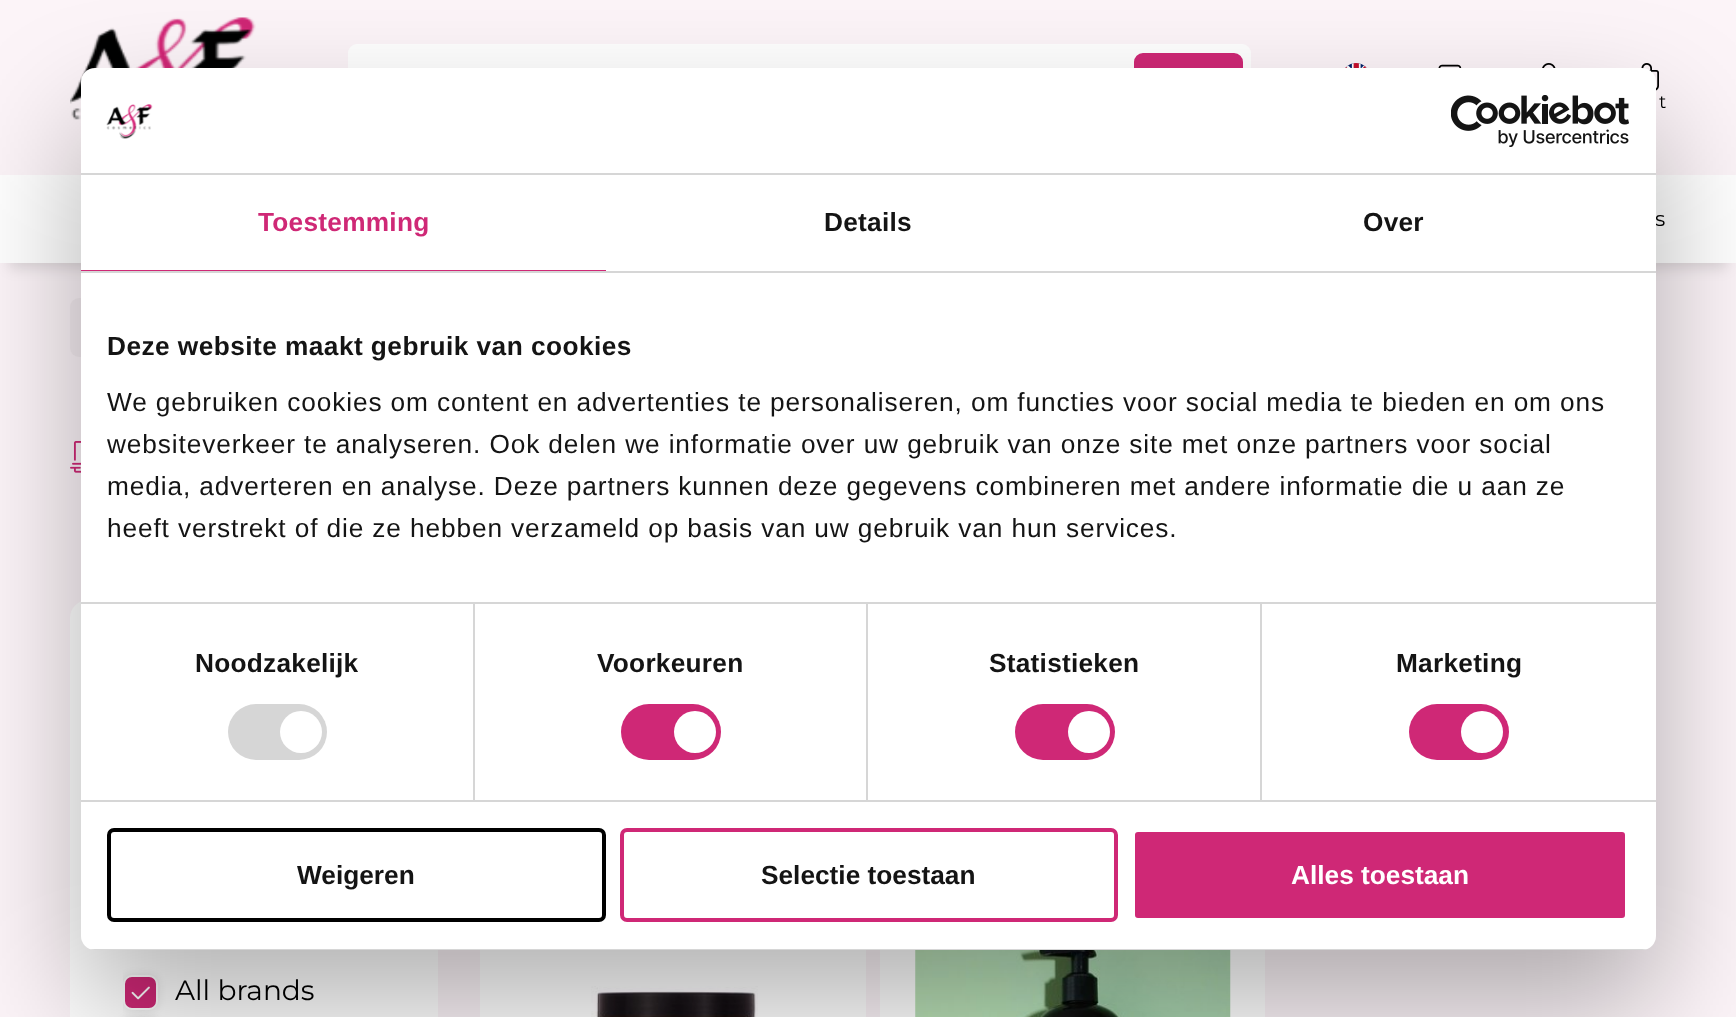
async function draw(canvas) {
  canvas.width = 1736
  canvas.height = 1017
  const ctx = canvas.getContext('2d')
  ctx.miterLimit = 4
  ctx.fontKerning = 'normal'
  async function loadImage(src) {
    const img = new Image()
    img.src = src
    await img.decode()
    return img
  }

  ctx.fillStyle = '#fcf4f8'
  ctx.fillRect(0, 0, 1736, 1017)
  ctx.drawImage(await loadImage('image0.png'), 70, 17, 186, 103)
  ctx.fillStyle = '#fff'
  ctx.beginPath()
  ctx.roundRect(348, 44, 903, 87, 9)
  ctx.fill()
  ctx.fillStyle = '#cf2876'
  ctx.beginPath()
  ctx.roundRect(1135, 54, 107, 68, 8)
  ctx.fill()
  ctx.strokeStyle = '#cf2876'
  ctx.lineWidth = 2
  ctx.stroke()
  ctx.drawImage(await loadImage('image1.png'), 1345, 63, 22, 5)
  ctx.drawImage(await loadImage('image2.png'), 1438, 64, 24, 4)
  ctx.drawImage(await loadImage('image3.png'), 1542, 63, 14, 5)
  ctx.drawImage(await loadImage('image4.png'), 1641, 63, 18, 28)
  ctx.font = '18px Montserrat'
  ctx.fillStyle = '#000'
  ctx.fillText('t', 1659, 108)
  ctx.fillStyle = '#0000001f'
  ctx.filter = 'blur(7px)'
  ctx.beginPath()
  ctx.rect(9, 198, 1718, 70)
  ctx.fill()
  ctx.filter = 'none'
  ctx.fillStyle = '#fff'
  ctx.fillRect(0, 175, 1736, 88)
  ctx.font = '21px Montserrat'
  ctx.fillStyle = '#000'
  ctx.fillText('s', 1655, 226)
  ctx.fillStyle = '#f4ecf0'
  ctx.beginPath()
  ctx.roundRect(70, 298, 175, 59, 9)
  ctx.fill()
  ctx.drawImage(await loadImage('image5.png'), 70, 441, 11, 32)
  ctx.fillStyle = '#fff'
  ctx.beginPath()
  ctx.roundRect(70, 600, 368, 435, 18)
  ctx.fill()
  ctx.save()
  ctx.beginPath()
  ctx.rect(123, 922, 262, 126)
  ctx.clip()
  ctx.fillStyle = '#0000001a'
  ctx.filter = 'blur(4.5px)'
  ctx.beginPath()
  ctx.roundRect(123, 975, 35, 35, 9)
  ctx.fill()
  ctx.filter = 'none'
  ctx.restore()
  ctx.fillStyle = '#cf2876'
  ctx.beginPath()
  ctx.roundRect(124, 976, 33, 33, 8)
  ctx.fill()
  ctx.strokeStyle = '#fff'
  ctx.stroke()
  ctx.font = '28px Montserrat'
  ctx.fillStyle = '#000'
  ctx.fillText('All brands', 175, 1000)
  ctx.drawImage(await loadImage('image6.png'), 131, 986, 19, 14)
  ctx.fillStyle = '#0000001a'
  ctx.filter = 'blur(4.5px)'
  ctx.beginPath()
  ctx.roundRect(123, 1017, 35, 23, 9)
  ctx.fill()
  ctx.filter = 'none'
  ctx.fillStyle = '#fff'
  ctx.fillRect(480, 950, 386, 67)
  ctx.drawImage(await loadImage('image7.png'), 591, 986, 167, 31)
  ctx.fillRect(880, 950, 385, 67)
  ctx.drawImage(await loadImage('image8.png'), 915, 950, 316, 67)
  ctx.fillStyle = '#0000004d'
  ctx.filter = 'blur(59.5px)'
  ctx.beginPath()
  ctx.roundRect(81, 124, 1575, 882, 14)
  ctx.fill()
  ctx.filter = 'none'
  ctx.fillStyle = '#fff'
  ctx.beginPath()
  ctx.roundRect(81, 68, 1575, 882, 14)
  ctx.fill()
  ctx.fillStyle = '#d6d6d6'
  ctx.fillRect(81, 173, 1575, 2)
  ctx.drawImage(await loadImage('image9.png'), 106, 104, 47, 35)
  ctx.drawImage(await loadImage('image10.png'), 1451, 95, 178, 52)
  ctx.fillRect(81, 271, 1575, 2)
  ctx.fillStyle = '#cf2876'
  ctx.fillRect(81, 270, 525, 1)
  ctx.letterSpacing = '0.25px'
  ctx.font = 'bold 26.25px Liberation Sans'
  ctx.fillText('Toestemming', 258, 231)
  ctx.fillStyle = '#141414'
  ctx.fillText('Details', 824, 231)
  ctx.fillText('Over', 1363, 231)
  ctx.fillStyle = '#d6d6d6'
  ctx.fillRect(81, 602, 1575, 2)
  ctx.letterSpacing = '0.45px'
  ctx.fillStyle = '#141414'
  ctx.fillText('Deze website maakt gebruik van cookies', 107, 355)
  ctx.letterSpacing = '0.88px'
  ctx.font = '26.25px Liberation Sans'
  ctx.fillText('We gebruiken cookies om content en advertenties te personaliseren, om functies voor social media te bieden en om ons', 107, 411)
  ctx.fillText('websiteverkeer te analyseren. Ook delen we informatie over uw gebruik van onze site met onze partners voor social', 107, 453)
  ctx.fillText('media, adverteren en analyse. Deze partners kunnen deze gegevens combineren met andere informatie die u aan ze', 107, 495)
  ctx.fillText('heeft verstrekt of die ze hebben verzameld op basis van uw gebruik van hun services.', 107, 537)
  ctx.fillStyle = '#d6d6d6'
  ctx.fillRect(81, 800, 1575, 2)
  ctx.fillRect(473, 604, 2, 196)
  ctx.letterSpacing = '0.25px'
  ctx.font = 'bold 26.25px Liberation Sans'
  ctx.fillStyle = '#141414'
  ctx.fillText('Noodzakelijk', 195, 672)
  ctx.fillStyle = '#d6d6d6'
  ctx.beginPath()
  ctx.roundRect(228, 704, 99, 56, 28)
  ctx.fill()
  ctx.fillStyle = '#fff'
  ctx.beginPath()
  ctx.arc(301, 732, 21, 0, 2 * Math.PI)
  ctx.fill()
  ctx.fillStyle = '#d6d6d6'
  ctx.fillRect(866, 604, 2, 196)
  ctx.fillStyle = '#141414'
  ctx.fillText('Voorkeuren', 597, 672)
  ctx.fillStyle = '#cf2876'
  ctx.beginPath()
  ctx.roundRect(621, 704, 100, 56, 28)
  ctx.fill()
  ctx.fillStyle = '#fff'
  ctx.beginPath()
  ctx.arc(695, 732, 21, 0, 2 * Math.PI)
  ctx.fill()
  ctx.fillStyle = '#d6d6d6'
  ctx.fillRect(1260, 604, 2, 196)
  ctx.fillStyle = '#141414'
  ctx.fillText('Statistieken', 989, 672)
  ctx.fillStyle = '#cf2876'
  ctx.beginPath()
  ctx.roundRect(1015, 704, 100, 56, 28)
  ctx.fill()
  ctx.fillStyle = '#fff'
  ctx.beginPath()
  ctx.arc(1089, 732, 21, 0, 2 * Math.PI)
  ctx.fill()
  ctx.fillStyle = '#141414'
  ctx.fillText('Marketing', 1396, 672)
  ctx.fillStyle = '#cf2876'
  ctx.beginPath()
  ctx.roundRect(1409, 704, 100, 56, 28)
  ctx.fill()
  ctx.fillStyle = '#fff'
  ctx.beginPath()
  ctx.arc(1482, 732, 21, 0, 2 * Math.PI)
  ctx.fill()
  ctx.save()
  ctx.beginPath()
  ctx.roundRect(81, 68, 1575, 882, 14)
  ctx.clip()
  ctx.fillStyle = '#d6d6d6'
  ctx.fillRect(90, 949, 1557, 1)
  ctx.restore()
  ctx.beginPath()
  ctx.roundRect(109, 830, 495, 90, 5)
  ctx.strokeStyle = '#000'
  ctx.lineWidth = 4
  ctx.stroke()
  ctx.letterSpacing = '0px'
  ctx.fillStyle = '#141414'
  ctx.fillText('Weigeren', 297, 884)
  ctx.beginPath()
  ctx.roundRect(622, 830, 494, 90, 5)
  ctx.strokeStyle = '#cf2876'
  ctx.stroke()
  ctx.fillText('Selectie toestaan', 761, 884)
  ctx.fillStyle = '#cf2876'
  ctx.beginPath()
  ctx.roundRect(1133, 830, 494, 90, 5)
  ctx.fill()
  ctx.strokeStyle = '#fff'
  ctx.stroke()
  ctx.fillStyle = '#fff'
  ctx.fillText('Alles toestaan', 1291, 884)
}

draw(document.querySelector('canvas'))
